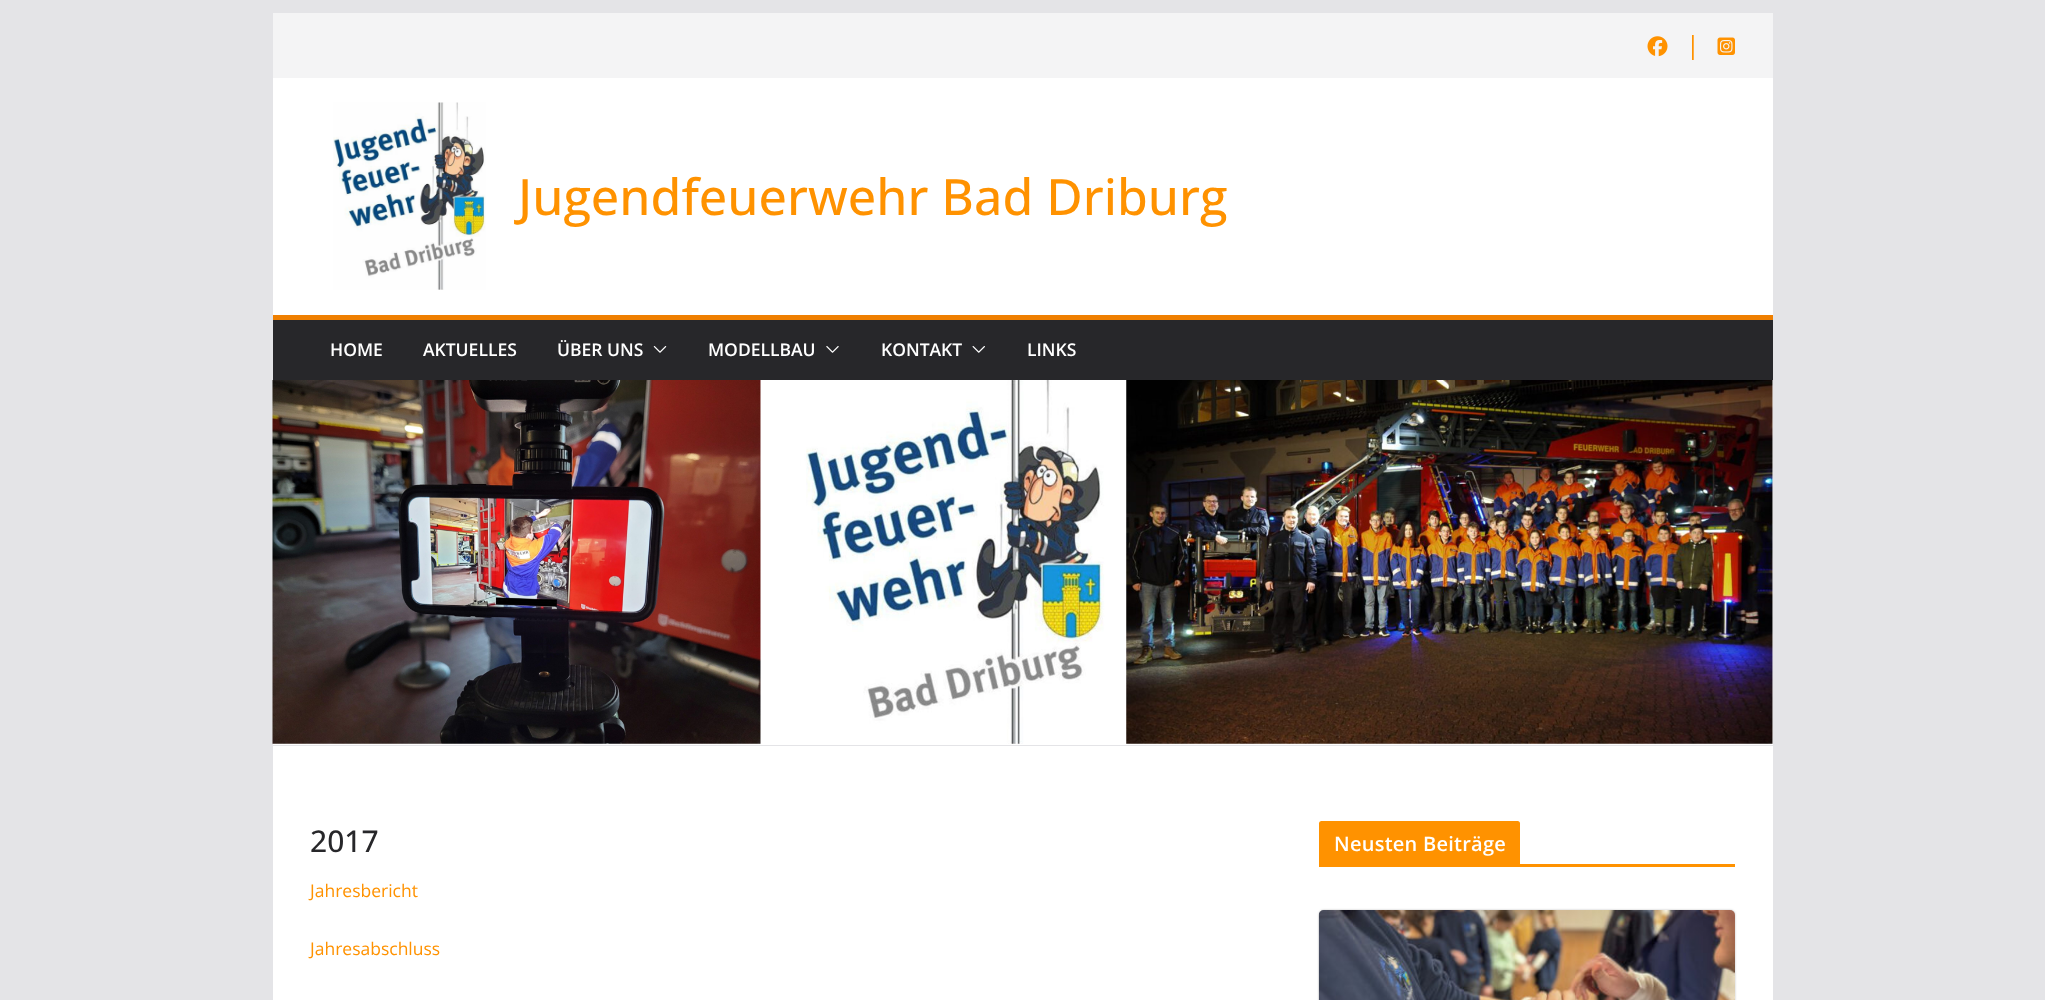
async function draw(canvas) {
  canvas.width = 2045
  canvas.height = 1000
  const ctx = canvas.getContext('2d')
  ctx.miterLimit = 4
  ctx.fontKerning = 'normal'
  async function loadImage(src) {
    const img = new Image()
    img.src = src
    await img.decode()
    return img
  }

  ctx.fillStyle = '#e4e4e7'
  ctx.fillRect(0, 0, 2045, 1000)
  ctx.fillStyle = '#fff'
  ctx.fillRect(273, 78, 1500, 667)
  ctx.fillStyle = '#f4f4f5'
  ctx.fillRect(273, 13, 1500, 65)
  ctx.drawImage(await loadImage('image0.png'), 1647, 36, 21, 21)
  ctx.font = '25px Open Sans'
  ctx.fillStyle = '#ff9200'
  ctx.fillText('|', 1686, 54)
  ctx.drawImage(await loadImage('image1.png'), 1717, 37, 18, 18)
  ctx.drawImage(await loadImage('image2.png'), 333, 102, 153, 188)
  ctx.font = '500 50px Open Sans'
  ctx.fillText('Jugendfeuerwehr Bad Driburg', 518, 215)
  ctx.fillStyle = '#27272a'
  ctx.fillRect(273, 320, 1500, 60)
  ctx.fillStyle = '#ef7f00'
  ctx.fillRect(273, 315, 1500, 5)
  ctx.font = '600 17.5px Open Sans'
  ctx.fillStyle = '#fff'
  ctx.fillText('HOME', 330, 356)
  ctx.fillText('AKTUELLES', 423, 356)
  ctx.fillText('ÜBER UNS', 557, 356)
  ctx.drawImage(await loadImage('image3.png'), 653, 346, 14, 7)
  ctx.fillText('MODELLBAU', 708, 356)
  ctx.drawImage(await loadImage('image4.png'), 826, 346, 13, 7)
  ctx.fillText('KONTAKT', 881, 356)
  ctx.drawImage(await loadImage('image5.png'), 972, 346, 13, 7)
  ctx.fillText('LINKS', 1027, 356)
  ctx.drawImage(await loadImage('image6.png'), 272, 380, 1501, 364)
  ctx.fillRect(273, 746, 1500, 254)
  ctx.font = '500 30px Open Sans'
  ctx.fillStyle = '#27272a'
  ctx.fillText('2017', 310, 852)
  ctx.font = '17.5px Open Sans'
  ctx.fillStyle = '#ff9200'
  ctx.fillText('Jahresbericht', 310, 897)
  ctx.fillText('Jahresabschluss', 310, 955)
  ctx.fillRect(1319, 864, 416, 3)
  ctx.beginPath()
  ctx.roundRect(1319, 821, 201, 43, [2.5, 2.5, 0, 0])
  ctx.fill()
  ctx.letterSpacing = '0.25px'
  ctx.font = '600 20px Open Sans'
  ctx.fillStyle = '#fff'
  ctx.fillText('Neusten Beiträge', 1334, 851)
  ctx.fillStyle = '#0000003d'
  ctx.filter = 'blur(1px)'
  ctx.beginPath()
  ctx.roundRect(1319, 910, 416, 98, 5)
  ctx.fill()
  ctx.filter = 'none'
  ctx.drawImage(await loadImage('image7.png'), 1318, 910, 417, 90)
}

draw(document.querySelector('canvas'))
